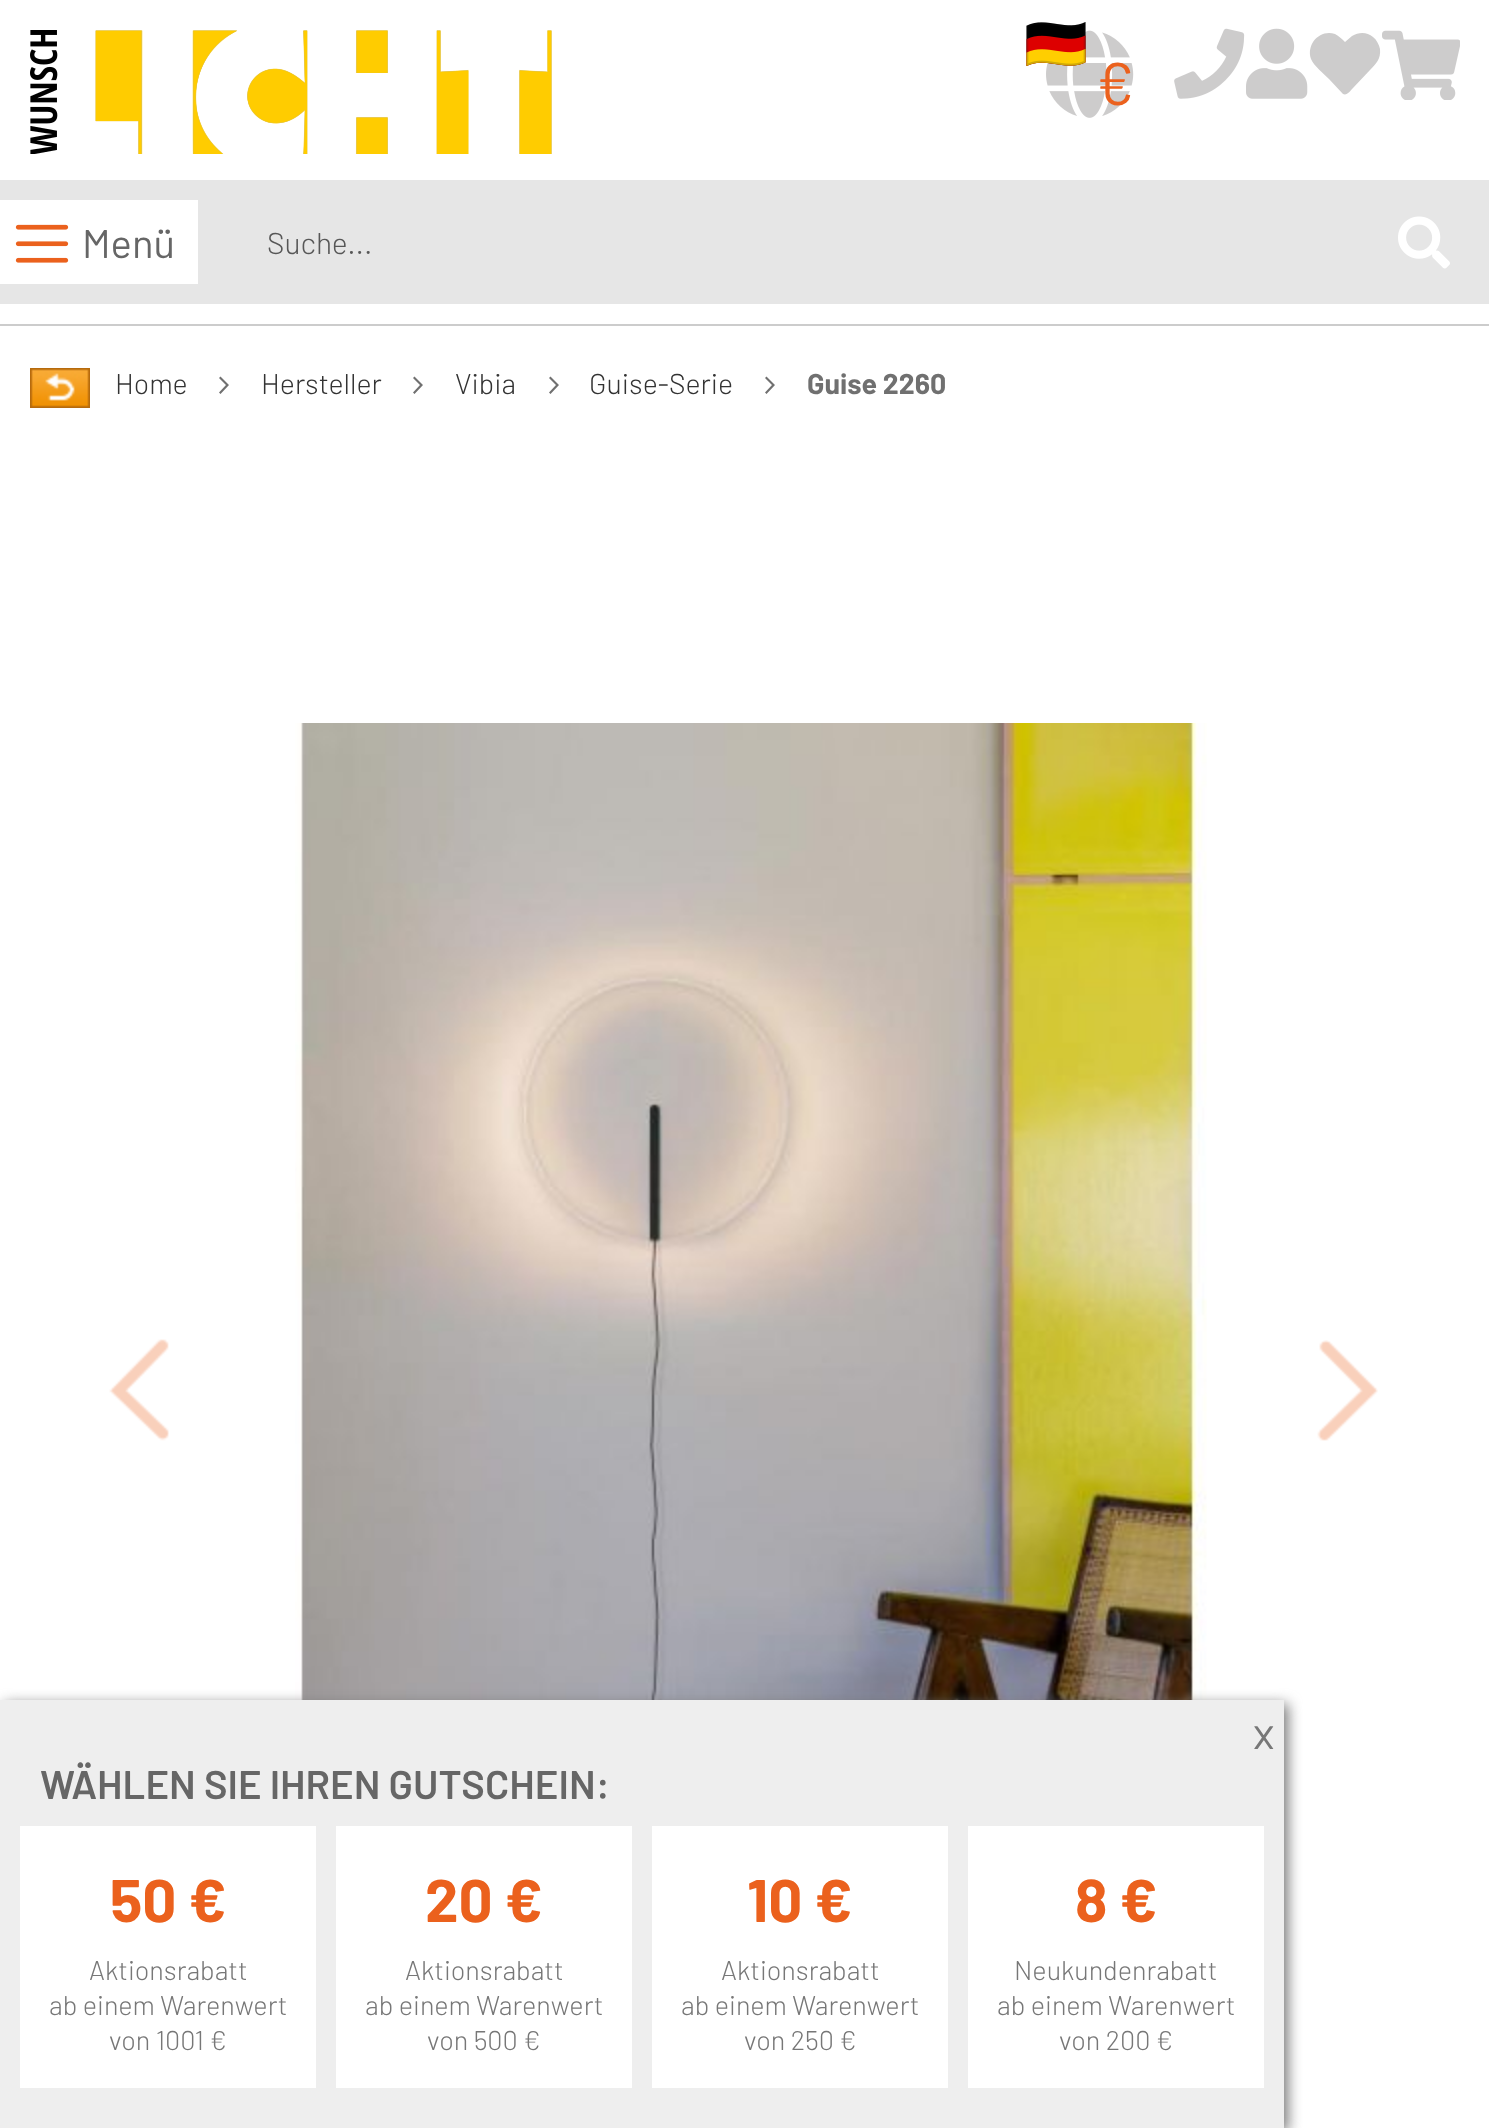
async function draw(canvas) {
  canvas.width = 1489
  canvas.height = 2128
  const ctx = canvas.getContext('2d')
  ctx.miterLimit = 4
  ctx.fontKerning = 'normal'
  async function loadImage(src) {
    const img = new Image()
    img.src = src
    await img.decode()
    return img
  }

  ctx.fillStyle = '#fff'
  ctx.fillRect(0, 0, 1489, 2128)
  ctx.fillStyle = '#ccc'
  ctx.fillRect(0, 324, 1489, 2)
  ctx.drawImage(await loadImage('image0.png'), 30, 30, 522, 124)
  ctx.drawImage(await loadImage('image2.png'), 1046, 30, 88, 88)
  ctx.drawImage(await loadImage('image1.png'), 1026, 22, 60, 44)
  ctx.font = '60px Barlow'
  ctx.fillStyle = '#eb611d'
  ctx.fillText('€', 1096, 105)
  ctx.drawImage(await loadImage('image3.png'), 1174, 28, 71, 71)
  ctx.drawImage(await loadImage('image4.png'), 1246, 28, 62, 71)
  ctx.fillStyle = '#cdcccc'
  ctx.beginPath()
  ctx.moveTo(1373, 37)
  ctx.bezierCurveTo(1377, 40, 1379, 45, 1380, 49)
  ctx.bezierCurveTo(1381, 59, 1376, 64, 1370, 70)
  ctx.lineTo(1353, 88)
  ctx.bezierCurveTo(1350, 91, 1347, 96, 1343, 94)
  ctx.lineTo(1329, 79)
  ctx.bezierCurveTo(1324, 74, 1314, 66, 1311, 59)
  ctx.bezierCurveTo(1306, 44, 1320, 29, 1335, 34)
  ctx.bezierCurveTo(1339, 36, 1342, 39, 1345, 42)
  ctx.lineTo(1352, 36)
  ctx.bezierCurveTo(1359, 32, 1367, 32, 1373, 37)
  ctx.closePath()
  ctx.fill()
  ctx.drawImage(await loadImage('image5.png'), 1382, 30, 78, 70)
  ctx.fillStyle = '#e6e6e6'
  ctx.fillRect(0, 180, 1489, 124)
  ctx.fillStyle = '#fff'
  ctx.fillRect(0, 200, 198, 84)
  ctx.drawImage(await loadImage('image6.png'), 15, 224, 54, 39)
  ctx.font = '40px Barlow'
  ctx.fillStyle = '#666'
  ctx.fillText('Menü', 82, 258)
  ctx.font = '300 30px Barlow'
  ctx.fillStyle = '#575757'
  ctx.fillText('Suche...', 267, 254)
  ctx.drawImage(await loadImage('image7.png'), 1398, 216, 52, 53)
  ctx.drawImage(await loadImage('image8.png'), 30, 368, 60, 40)
  ctx.font = '300 28.5px Barlow'
  ctx.fillStyle = '#333'
  ctx.fillText('Home', 115, 394)
  ctx.fillStyle = '#707070'
  ctx.beginPath()
  ctx.moveTo(229, 385)
  ctx.lineTo(220.5, 376.5)
  ctx.lineTo(219, 378)
  ctx.lineTo(226, 385)
  ctx.lineTo(219, 392.5)
  ctx.lineTo(220.5, 394)
  ctx.closePath()
  ctx.fill()
  ctx.fillStyle = '#333'
  ctx.fillText('Hersteller', 261, 394)
  ctx.fillStyle = '#707070'
  ctx.beginPath()
  ctx.moveTo(423, 385)
  ctx.lineTo(414.5, 376.5)
  ctx.lineTo(413, 378)
  ctx.lineTo(420, 385)
  ctx.lineTo(413, 392.5)
  ctx.lineTo(414.5, 394)
  ctx.closePath()
  ctx.fill()
  ctx.fillStyle = '#333'
  ctx.fillText('Vibia', 455, 394)
  ctx.fillStyle = '#707070'
  ctx.beginPath()
  ctx.moveTo(559, 385)
  ctx.lineTo(550.5, 376.5)
  ctx.lineTo(549, 378)
  ctx.lineTo(556, 385)
  ctx.lineTo(549, 392.5)
  ctx.lineTo(550.5, 394)
  ctx.closePath()
  ctx.fill()
  ctx.fillStyle = '#333'
  ctx.fillText('Guise-Serie', 589, 394)
  ctx.fillStyle = '#707070'
  ctx.beginPath()
  ctx.moveTo(775, 385)
  ctx.lineTo(766.5, 376.5)
  ctx.lineTo(765, 378)
  ctx.lineTo(772, 385)
  ctx.lineTo(765, 392.5)
  ctx.lineTo(766.5, 394)
  ctx.closePath()
  ctx.fill()
  ctx.font = 'bold 28.5px Barlow'
  ctx.fillText('Guise 2260', 807, 394)
  ctx.drawImage(await loadImage('image9.png'), 109, 1339, 60, 102)
  ctx.drawImage(await loadImage('image10.png'), 295, 723, 912, 977)
  ctx.drawImage(await loadImage('image11.png'), 1317, 1340, 61, 101)
  ctx.fillStyle = '#777'
  ctx.filter = 'blur(7px)'
  ctx.beginPath()
  ctx.rect(4, 1704, 1284, 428)
  ctx.fill()
  ctx.filter = 'none'
  ctx.fillStyle = '#eee'
  ctx.fillRect(0, 1700, 1284, 428)
  ctx.font = '45px Barlow'
  ctx.fillStyle = '#777'
  ctx.fillText('x', 1253, 1749)
  ctx.font = '600 40px Barlow'
  ctx.fillStyle = '#666'
  ctx.fillText('WÄHLEN SIE IHREN GUTSCHEIN:', 40, 1799)
  ctx.fillStyle = '#fff'
  ctx.fillRect(20, 1826, 296, 262)
  ctx.font = 'bold 60px Barlow'
  ctx.fillStyle = '#eb611d'
  ctx.fillText('50 €', 110, 1922)
  ctx.font = '300 27px Barlow'
  ctx.fillStyle = '#777'
  ctx.fillText('Aktionsrabatt', 89, 1980)
  ctx.fillText('ab einem Warenwert', 49, 2015)
  ctx.fillText('von 1001 €', 109, 2050)
  ctx.fillStyle = '#fff'
  ctx.fillRect(336, 1826, 296, 262)
  ctx.font = 'bold 60px Barlow'
  ctx.fillStyle = '#eb611d'
  ctx.fillText('20 €', 425, 1922)
  ctx.font = '300 27px Barlow'
  ctx.fillStyle = '#777'
  ctx.fillText('Aktionsrabatt', 405, 1980)
  ctx.fillText('ab einem Warenwert', 365, 2015)
  ctx.fillText('von 500 €', 427, 2050)
  ctx.fillStyle = '#fff'
  ctx.fillRect(652, 1826, 296, 262)
  ctx.font = 'bold 60px Barlow'
  ctx.fillStyle = '#eb611d'
  ctx.fillText('10 €', 747, 1922)
  ctx.font = '300 27px Barlow'
  ctx.fillStyle = '#777'
  ctx.fillText('Aktionsrabatt', 721, 1980)
  ctx.fillText('ab einem Warenwert', 681, 2015)
  ctx.fillText('von 250 €', 744, 2050)
  ctx.fillStyle = '#fff'
  ctx.fillRect(968, 1826, 296, 262)
  ctx.font = 'bold 60px Barlow'
  ctx.fillStyle = '#eb611d'
  ctx.fillText('8 €', 1075, 1922)
  ctx.font = '300 27px Barlow'
  ctx.fillStyle = '#777'
  ctx.fillText('Neukundenrabatt', 1014, 1980)
  ctx.fillText('ab einem Warenwert', 997, 2015)
  ctx.fillText('von 200 €', 1059, 2050)
}

draw(document.querySelector('canvas'))
